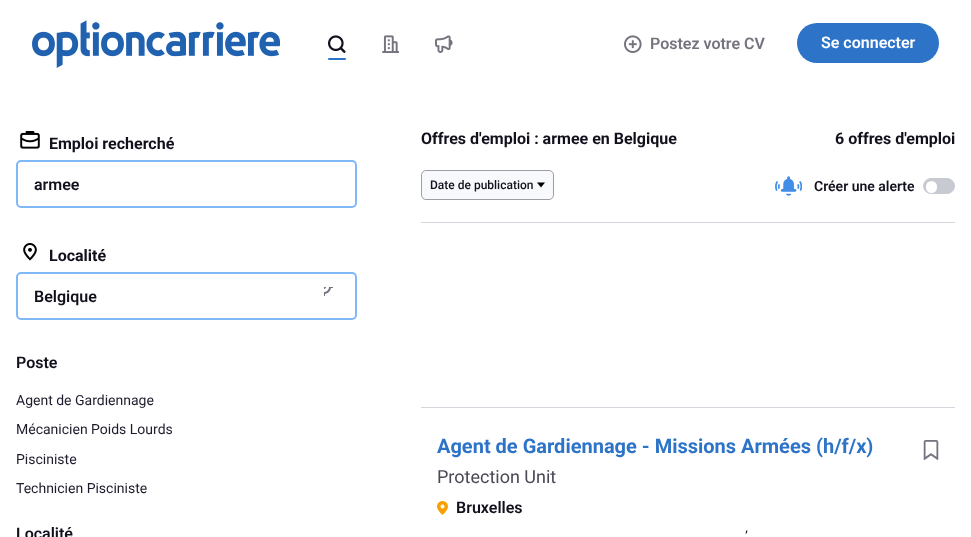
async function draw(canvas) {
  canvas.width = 971
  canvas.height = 537
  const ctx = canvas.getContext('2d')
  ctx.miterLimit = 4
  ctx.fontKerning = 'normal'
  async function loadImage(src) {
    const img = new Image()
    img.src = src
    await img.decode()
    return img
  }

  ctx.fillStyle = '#fff'
  ctx.fillRect(0, 0, 971, 537)
  ctx.drawImage(await loadImage('image0.png'), 32, 20, 248, 48)
  ctx.drawImage(await loadImage('image1.png'), 328, 35, 18, 18)
  ctx.fillStyle = '#2d74c8'
  ctx.beginPath()
  ctx.roundRect(328, 58, 18, 2, 1)
  ctx.fill()
  ctx.drawImage(await loadImage('image2.png'), 382, 35, 17, 18)
  ctx.drawImage(await loadImage('image3.png'), 435, 35, 18, 18)
  ctx.drawImage(await loadImage('image4.png'), 624, 35, 18, 18)
  ctx.font = '600 16px Roboto'
  ctx.fillStyle = '#74737e'
  ctx.fillText('Postez votre CV', 650, 49)
  ctx.fillStyle = '#2d74c8'
  ctx.beginPath()
  ctx.roundRect(797, 23, 142, 40, 20)
  ctx.fill()
  ctx.fillStyle = '#fff'
  ctx.fillText('Se connecter', 821, 48)
  ctx.drawImage(await loadImage('image5.png'), 20, 131, 20, 18)
  ctx.font = 'bold 16px Roboto'
  ctx.fillStyle = '#12101c'
  ctx.fillText('Emploi recherché', 49, 149)
  ctx.beginPath()
  ctx.roundRect(17, 161, 339, 46, 4)
  ctx.strokeStyle = '#80b8f8'
  ctx.lineWidth = 2
  ctx.stroke()
  ctx.font = '600 16px Roboto'
  ctx.fillText('armee', 34, 190)
  ctx.drawImage(await loadImage('image6.png'), 23, 243, 14, 18)
  ctx.font = 'bold 16px Roboto'
  ctx.fillText('Localité', 49, 261)
  ctx.beginPath()
  ctx.roundRect(17, 273, 339, 46, 4)
  ctx.stroke()
  ctx.font = '600 16px Roboto'
  ctx.fillText('Belgique', 34, 302)
  ctx.drawImage(await loadImage('image7.png'), 324, 287, 9, 9)
  ctx.fillText('Poste', 16, 368)
  ctx.font = '14px Roboto'
  ctx.fillStyle = '#1e1c2c'
  ctx.fillText('Agent de Gardiennage', 16, 405)
  ctx.fillText('Mécanicien Poids Lourds', 16, 434)
  ctx.fillText('Pisciniste', 16, 464)
  ctx.fillText('Technicien Pisciniste', 16, 493)
  ctx.font = '600 16px Roboto'
  ctx.fillStyle = '#12101c'
  ctx.fillText('Localité', 16, 539)
  ctx.font = 'bold 16px Roboto'
  ctx.fillText('Offres d\'emploi : armee en Belgique', 421, 144)
  ctx.fillText('6 offres d\'emploi', 835, 144)
  ctx.fillStyle = '#f8f9fc'
  ctx.beginPath()
  ctx.roundRect(421.5, 170.5, 132, 29, 4.5)
  ctx.fill()
  ctx.strokeStyle = '#9e9da6'
  ctx.lineWidth = 1
  ctx.stroke()
  ctx.font = '500 12px Roboto'
  ctx.fillStyle = '#12101c'
  ctx.fillText('Date de publication', 430, 189)
  ctx.fillStyle = '#000'
  ctx.beginPath()
  ctx.moveTo(545, 182.5)
  ctx.lineTo(541, 187.5)
  ctx.lineTo(537, 182.5)
  ctx.lineTo(545, 182.5)
  ctx.fill()
  ctx.drawImage(await loadImage('image8.png'), 775, 176, 27, 20)
  ctx.font = '600 14px Roboto'
  ctx.fillStyle = '#12101c'
  ctx.fillText('Créer une alerte', 814, 191)
  ctx.fillStyle = '#c8cad2'
  ctx.beginPath()
  ctx.roundRect(923.5, 178.5, 31, 15, 7.5)
  ctx.fill()
  ctx.strokeStyle = '#c8cad2'
  ctx.stroke()
  ctx.fillStyle = '#fff'
  ctx.beginPath()
  ctx.roundRect(926, 181, 11, 12, 5.5)
  ctx.fill()
  ctx.fillStyle = '#d4d6de'
  ctx.fillRect(421, 222, 534, 1)
  ctx.fillRect(421, 407, 534, 1)
  ctx.font = 'bold 20px Roboto'
  ctx.fillStyle = '#2d74c8'
  ctx.fillText('Agent de Gardiennage - Missions Armées (h/f/x)', 437, 453)
  ctx.drawImage(await loadImage('image9.png'), 923, 440, 16, 20)
  ctx.font = '18px Roboto'
  ctx.fillStyle = '#4b4956'
  ctx.fillText('Protection Unit', 437, 483)
  ctx.drawImage(await loadImage('image10.png'), 437, 501, 11, 14)
  ctx.font = '600 16px Roboto'
  ctx.fillStyle = '#12101c'
  ctx.fillText('Bruxelles', 456, 513)
  ctx.font = '14px Roboto'
  ctx.fillStyle = '#1e1c2c'
  ctx.fillText('’', 745, 541)
}

draw(document.querySelector('canvas'))
